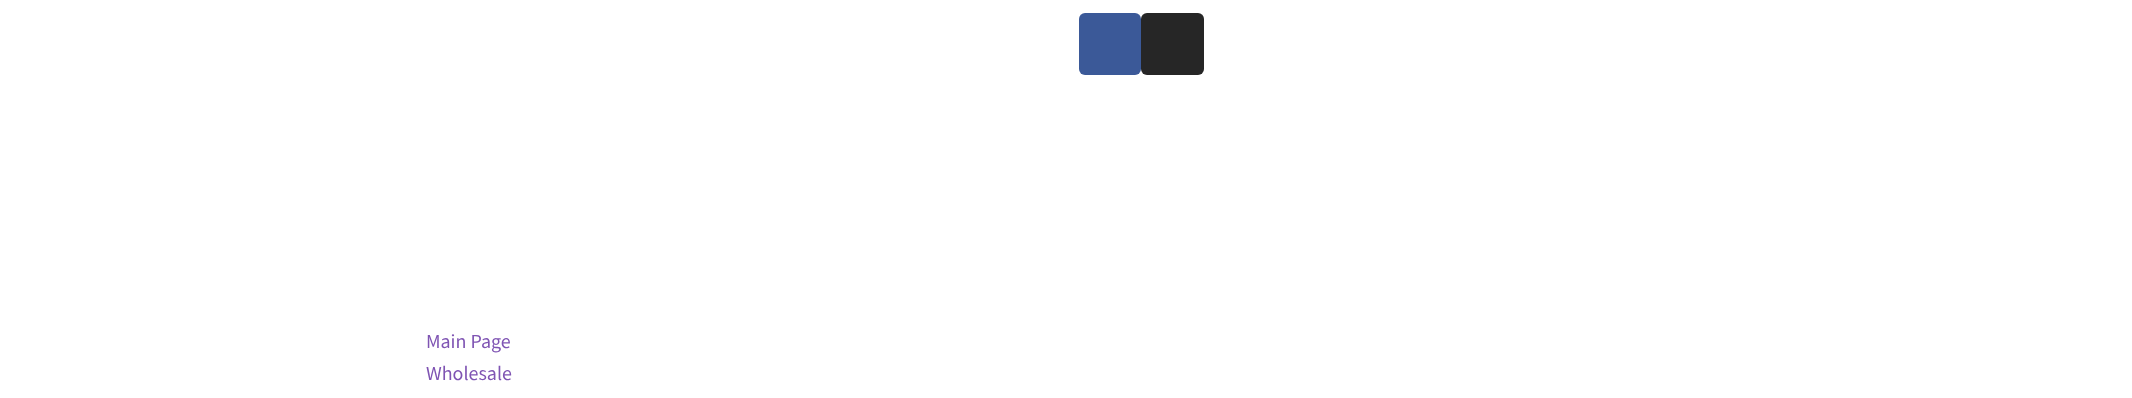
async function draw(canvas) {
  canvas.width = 2132
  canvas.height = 398
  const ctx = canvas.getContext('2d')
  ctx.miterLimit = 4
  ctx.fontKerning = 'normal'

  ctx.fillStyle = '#fff'
  ctx.fillRect(0, 0, 2132, 398)
  ctx.fillStyle = '#3b5998'
  ctx.beginPath()
  ctx.roundRect(1079, 13, 62, 62, 6)
  ctx.fill()
  ctx.fillStyle = '#262626'
  ctx.beginPath()
  ctx.roundRect(1141, 13, 63, 62, 6)
  ctx.fill()
  ctx.font = '20px Source Sans Pro'
  ctx.fillStyle = '#7f54b3'
  ctx.fillText('Main Page', 426, 348)
  ctx.fillText('Wholesale', 426, 380)
}

draw(document.querySelector('canvas'))
